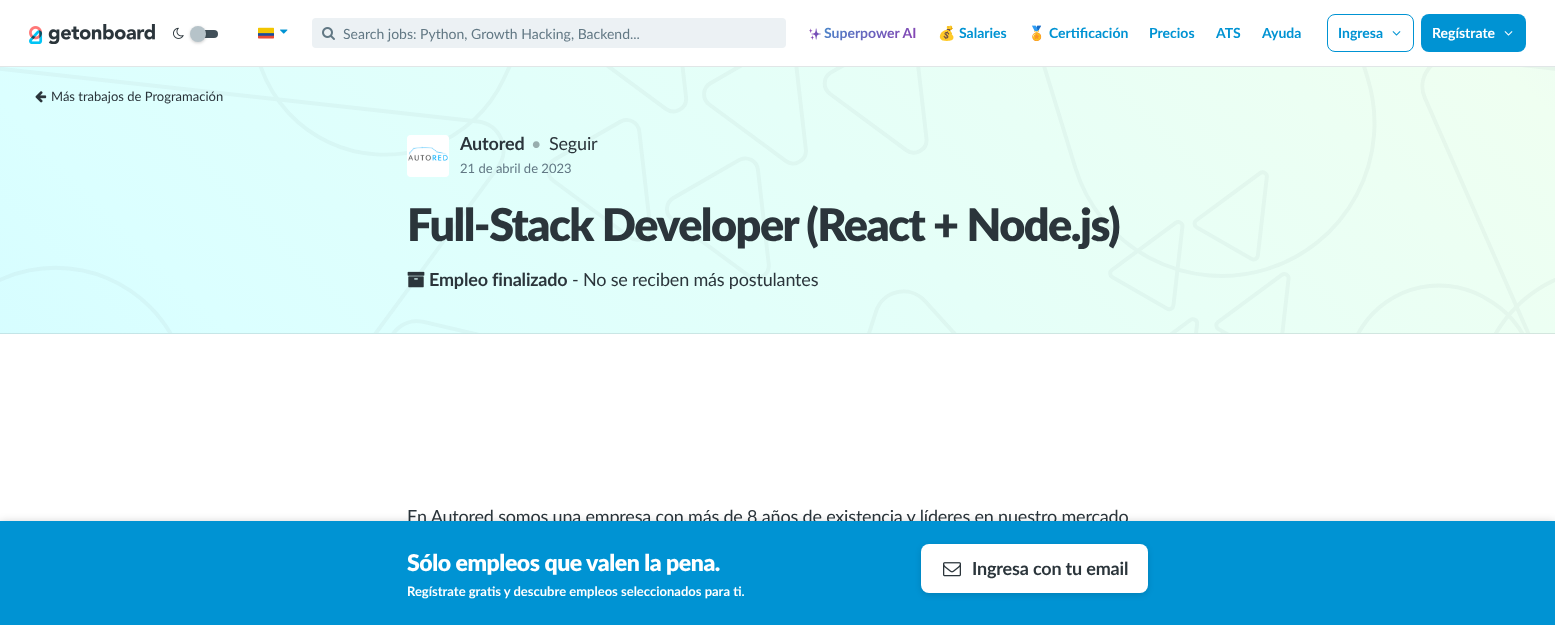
async function draw(canvas) {
  canvas.width = 1555
  canvas.height = 625
  const ctx = canvas.getContext('2d')
  ctx.miterLimit = 4
  ctx.fontKerning = 'normal'
  async function loadImage(src) {
    const img = new Image()
    img.src = src
    await img.decode()
    return img
  }
  let gradient

  ctx.fillStyle = '#fff'
  ctx.fillRect(0, 0, 1555, 625)
  ctx.fillStyle = '#e1e6e7'
  ctx.fillRect(0, 66, 1555, 1)
  ctx.drawImage(await loadImage('image0.png'), 29, 24, 126, 20)
  ctx.drawImage(await loadImage('image1.png'), 173, 27, 11, 12)
  ctx.fillStyle = '#415059'
  ctx.beginPath()
  ctx.roundRect(198, 30, 20, 8, 4)
  ctx.fill()
  ctx.fillStyle = '#00000033'
  ctx.filter = 'blur(1.5px)'
  ctx.beginPath()
  ctx.roundRect(190, 27, 16, 16, 8)
  ctx.fill()
  ctx.filter = 'none'
  ctx.fillStyle = '#b6c3c9'
  ctx.beginPath()
  ctx.arc(198, 34, 8, 0, 2 * Math.PI)
  ctx.fill()
  ctx.drawImage(await loadImage('image2.png'), 258, 27, 16, 12)
  ctx.drawImage(await loadImage('image3.png'), 280, 29, 8, 5)
  ctx.fillStyle = '#ecf1f4'
  ctx.beginPath()
  ctx.roundRect(312, 18, 474, 30, 4)
  ctx.fill()
  ctx.drawImage(await loadImage('image4.png'), 322, 27, 13, 13)
  ctx.font = '14px Lato'
  ctx.fillStyle = '#627884'
  ctx.fillText('Search jobs: Python, Growth Hacking, Backend...', 343, 39)
  ctx.drawImage(await loadImage('image5.png'), 809, 28, 12, 12)
  ctx.font = 'bold 14px Lato'
  gradient = ctx.createLinearGradient(832, 1.1, 894, 63)
  gradient.addColorStop(0, '#4091cd')
  gradient.addColorStop(1, '#8842b2')
  ctx.fillStyle = gradient
  ctx.fillText('Superpower AI', 824, 38)
  ctx.font = 'bold 14px Noto Color Emoji'
  ctx.fillStyle = '#0093d3'
  ctx.fillText('💰', 938, 38)
  ctx.font = 'bold 14px Lato'
  ctx.fillText('Salaries', 959, 38)
  ctx.font = 'bold 14px Noto Color Emoji'
  ctx.fillText('🏅', 1028, 38)
  ctx.font = 'bold 14px Lato'
  ctx.fillText('Certificación', 1049, 38)
  ctx.fillText('Precios', 1149, 38)
  ctx.fillText('ATS', 1216, 38)
  ctx.fillText('Ayuda', 1262, 38)
  ctx.beginPath()
  ctx.roundRect(1327.5, 14.5, 86, 37, 7.5)
  ctx.strokeStyle = '#0093d3'
  ctx.stroke()
  ctx.fillText('Ingresa', 1338, 38)
  ctx.drawImage(await loadImage('image6.png'), 1392, 31, 9, 5)
  ctx.beginPath()
  ctx.roundRect(1421, 14, 105, 38, 8)
  ctx.fill()
  ctx.fillStyle = '#fff'
  ctx.fillText('Regístrate', 1432, 38)
  ctx.drawImage(await loadImage('image7.png'), 1504, 31, 9, 5)
  gradient = ctx.createLinearGradient(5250, -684, 750, 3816)
  gradient.addColorStop(0, '#dbffff')
  gradient.addColorStop(0.17, '#c0f3ff')
  gradient.addColorStop(0.33, '#e5d9ff')
  gradient.addColorStop(0.5, '#effff1')
  gradient.addColorStop(0.67, '#dbffff')
  gradient.addColorStop(0.83, '#c0f3ff')
  gradient.addColorStop(1, '#e5d9ff')
  ctx.fillStyle = gradient
  ctx.fillRect(0, 67, 1555, 266)
  gradient = ctx.createLinearGradient(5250, -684, 750, 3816)
  gradient.addColorStop(0, '#c6e6e7')
  gradient.addColorStop(0.17, '#b2dde7')
  gradient.addColorStop(0.33, '#cec9e7')
  gradient.addColorStop(0.5, '#d5e6dd')
  gradient.addColorStop(0.67, '#c6e6e7')
  gradient.addColorStop(0.83, '#b2dde7')
  gradient.addColorStop(1, '#cec9e7')
  ctx.fillStyle = gradient
  ctx.fillRect(0, 333, 1555, 1)
  ctx.drawImage(await loadImage('image8.png'), 0, 67, 1555, 266)
  ctx.drawImage(await loadImage('image9.png'), 35, 91, 12, 12)
  ctx.font = '13px Lato'
  ctx.fillStyle = '#2b353b'
  ctx.fillText('Más trabajos de Programación', 51, 101)
  ctx.fillStyle = '#fff'
  ctx.beginPath()
  ctx.roundRect(407, 135, 42, 42, 4)
  ctx.fill()
  ctx.beginPath()
  ctx.roundRect(407.5, 135.5, 41, 41, 3.5)
  ctx.strokeStyle = '#ffffff80'
  ctx.stroke()
  ctx.drawImage(await loadImage('image10.png'), 408, 146, 40, 15)
  ctx.letterSpacing = '-0.18px'
  ctx.font = 'bold 18px Lato'
  ctx.fillStyle = '#2b353b'
  ctx.fillText('Autored', 460, 150)
  ctx.font = '18px Lato'
  ctx.fillStyle = '#98aeae'
  ctx.fillText('•', 531, 150)
  ctx.fillStyle = '#2b353b'
  ctx.fillText('Seguir', 549, 150)
  ctx.letterSpacing = '0px'
  ctx.font = '13px Lato'
  ctx.fillStyle = '#627884'
  ctx.fillText('21 de abril de 2023', 460, 173)
  ctx.letterSpacing = '-1.55px'
  ctx.font = '900 45px Lato'
  ctx.fillStyle = '#2b353b'
  ctx.fillText('Full-Stack Developer (React + Node.js)', 407, 241)
  ctx.drawImage(await loadImage('image11.png'), 407, 271, 18, 17)
  ctx.letterSpacing = '-0.18px'
  ctx.font = 'bold 18px Lato'
  ctx.fillText('Empleo finalizado', 429, 286)
  ctx.font = '18px Lato'
  ctx.fillText('- No se reciben más postulantes', 572, 286)
  ctx.fillText('En Autored somos una empresa con más de 8 años de existencia y líderes en nuestro mercado', 407, 523)
  ctx.fillStyle = '#00000040'
  ctx.filter = 'blur(5px)'
  ctx.beginPath()
  ctx.rect(0, 523, 1555, 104)
  ctx.fill()
  ctx.filter = 'none'
  ctx.fillStyle = '#0093d3'
  ctx.fillRect(0, 521, 1555, 104)
  ctx.letterSpacing = '-0.45px'
  ctx.font = '900 23px Lato'
  ctx.fillStyle = '#fff'
  ctx.fillText('Sólo empleos que valen la pena.', 407, 571)
  ctx.letterSpacing = '0px'
  ctx.font = 'bold 13px Lato'
  ctx.fillText('Regístrate gratis y descubre empleos seleccionados para ti.', 407, 596)
  ctx.fillStyle = '#0000001f'
  ctx.filter = 'blur(3px)'
  ctx.beginPath()
  ctx.roundRect(921, 546, 227, 49, 8)
  ctx.fill()
  ctx.filter = 'none'
  ctx.fillStyle = '#fff'
  ctx.beginPath()
  ctx.roundRect(921, 544, 227, 49, 8)
  ctx.fill()
  ctx.drawImage(await loadImage('image12.png'), 943, 562, 18, 15)
  ctx.letterSpacing = '-0.18px'
  ctx.font = 'bold 18px Lato'
  ctx.fillStyle = '#2b353b'
  ctx.fillText('Ingresa con tu email', 972, 575)
}

draw(document.querySelector('canvas'))
